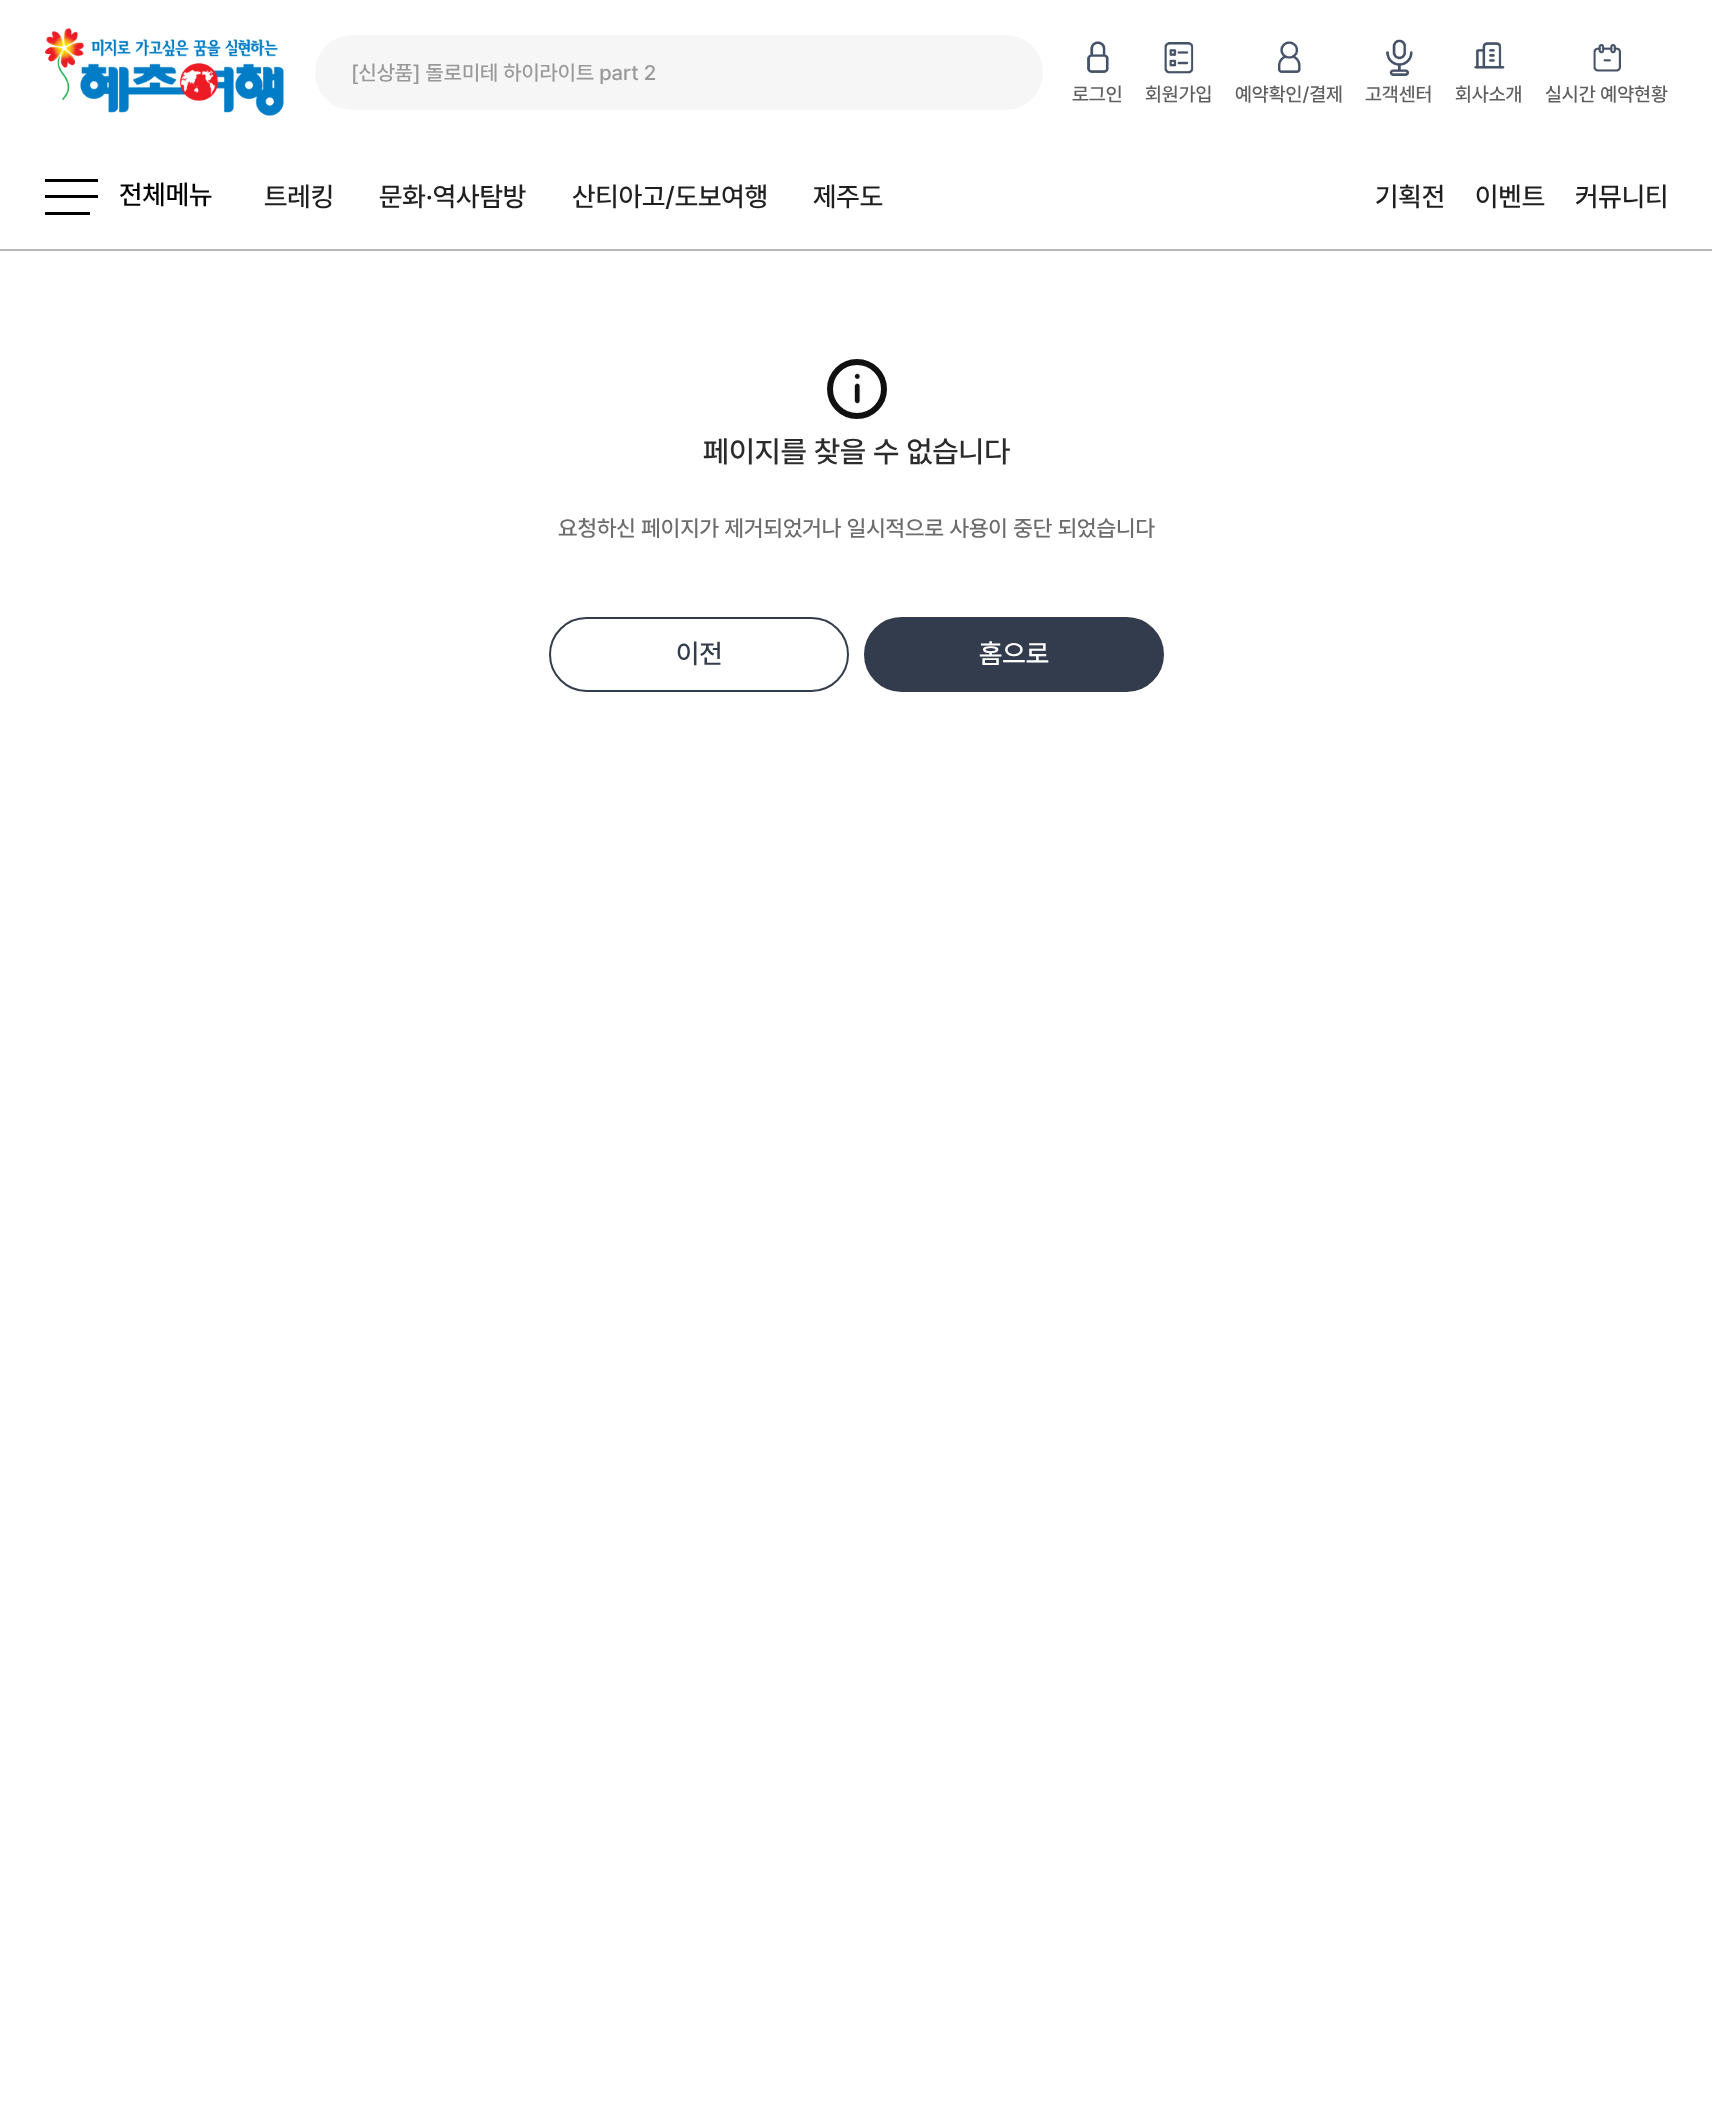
async function draw(canvas) {
  canvas.width = 1712
  canvas.height = 2107
  const ctx = canvas.getContext('2d')
  ctx.miterLimit = 4
  ctx.fontKerning = 'normal'
  async function loadImage(src) {
    const img = new Image()
    img.src = src
    await img.decode()
    return img
  }

  ctx.fillStyle = '#fff'
  ctx.fillRect(0, 0, 1712, 2107)
  ctx.fillStyle = '#b7b7b7'
  ctx.fillRect(0, 249, 1712, 2)
  ctx.drawImage(await loadImage('image0.png'), 45, 28, 239, 88)
  ctx.fillStyle = '#f6f6f6'
  ctx.beginPath()
  ctx.roundRect(315, 35, 728, 75, 37.5)
  ctx.fill()
  ctx.save()
  ctx.beginPath()
  ctx.rect(351, 60, 602, 24)
  ctx.clip()
  ctx.font = '500 21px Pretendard'
  ctx.fillStyle = '#999'
  ctx.fillText('[신상품] 돌로미테 하이라이트 part 2', 351, 80)
  ctx.restore()
  ctx.drawImage(await loadImage('image1.png'), 1087, 41, 22, 32)
  ctx.font = '500 19.5px Pretendard'
  ctx.fillStyle = '#5f5f5f'
  ctx.fillText('로그인', 1072, 101)
  ctx.drawImage(await loadImage('image2.png'), 1164, 42, 30, 32)
  ctx.fillText('회원가입', 1145, 101)
  ctx.drawImage(await loadImage('image3.png'), 1278, 41, 23, 32)
  ctx.fillText('예약확인/결제', 1235, 101)
  ctx.drawImage(await loadImage('image4.png'), 1386, 39, 27, 37)
  ctx.fillText('고객센터', 1365, 101)
  ctx.drawImage(await loadImage('image5.png'), 1474, 42, 31, 27)
  ctx.fillText('회사소개', 1455, 101)
  ctx.drawImage(await loadImage('image6.png'), 1593, 44, 28, 28)
  ctx.fillText('실시간 예약현황', 1545, 101)
  ctx.fillStyle = '#000'
  ctx.fillRect(45, 195, 53, 3)
  ctx.fillRect(45, 179, 53, 3)
  ctx.fillRect(45, 212, 45, 3)
  ctx.font = '500 27px Pretendard'
  ctx.fillText('전체메뉴', 119, 204)
  ctx.fillStyle = '#1f1f1f'
  ctx.fillText('트레킹', 264, 206)
  ctx.fillText('문화·역사탐방', 379, 206)
  ctx.fillText('산티아고/도보여행', 572, 206)
  ctx.fillText('제주도', 813, 206)
  ctx.fillText('기획전', 1375, 206)
  ctx.fillText('이벤트', 1475, 206)
  ctx.fillText('커뮤니티', 1575, 206)
  ctx.drawImage(await loadImage('image7.png'), 854, 373, 7, 31)
  ctx.beginPath()
  ctx.arc(857, 389, 27, 0, 2 * Math.PI)
  ctx.strokeStyle = '#101010'
  ctx.lineWidth = 6
  ctx.stroke()
  ctx.font = '500 30px Pretendard'
  ctx.fillStyle = '#2b2b2b'
  ctx.fillText('페이지를 찾을 수 없습니다', 703, 462)
  ctx.font = '500 22.5px Pretendard'
  ctx.fillStyle = '#6d6c6c'
  ctx.fillText('요청하신 페이지가 제거되었거나 일시적으로 사용이 중단 되었습니다', 558, 536)
  ctx.beginPath()
  ctx.roundRect(550, 618, 298, 73, 36.5)
  ctx.strokeStyle = '#333c4c'
  ctx.lineWidth = 2
  ctx.stroke()
  ctx.font = '500 27px Pretendard'
  ctx.fillStyle = '#333c4c'
  ctx.fillText('이전', 676, 663)
  ctx.beginPath()
  ctx.roundRect(865, 618, 298, 73, 36.5)
  ctx.fill()
  ctx.stroke()
  ctx.fillStyle = '#fff'
  ctx.fillText('홈으로', 979, 663)
}

draw(document.querySelector('canvas'))
